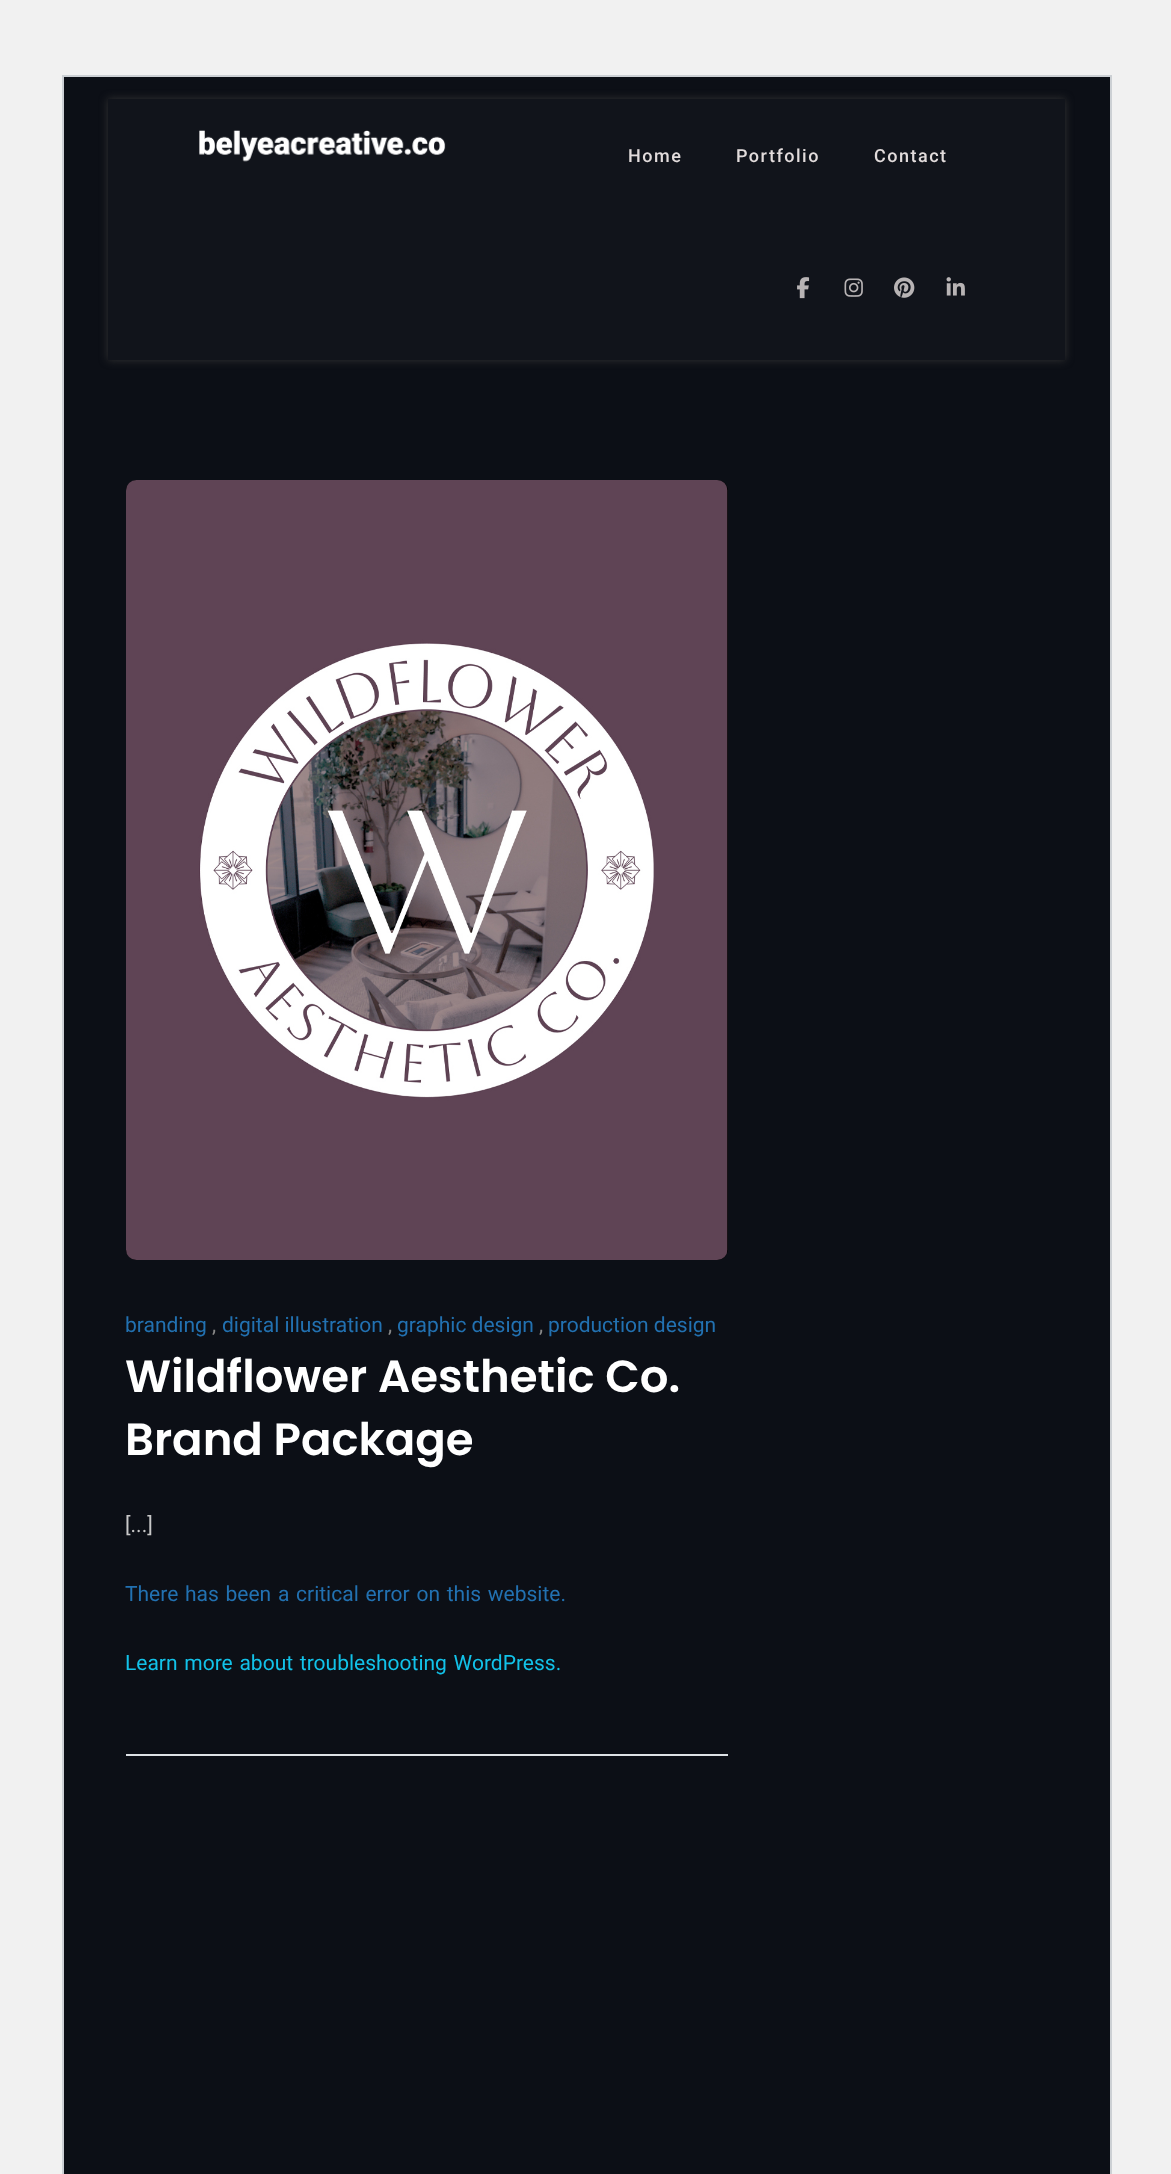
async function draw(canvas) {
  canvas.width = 1171
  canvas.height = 2174
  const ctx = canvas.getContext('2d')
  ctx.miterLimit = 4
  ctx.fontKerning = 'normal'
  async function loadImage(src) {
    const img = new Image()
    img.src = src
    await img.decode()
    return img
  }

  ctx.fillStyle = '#f1f1f1'
  ctx.fillRect(0, 0, 1171, 2174)
  ctx.fillStyle = '#0c0f16'
  ctx.beginPath()
  ctx.rect(63, 76, 1048, 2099)
  ctx.fill()
  ctx.strokeStyle = '#ccd0d4'
  ctx.lineWidth = 2
  ctx.stroke()
  ctx.fillStyle = '#333'
  ctx.filter = 'blur(4px)'
  ctx.beginPath()
  ctx.rect(108, 99, 957, 261)
  ctx.fill()
  ctx.filter = 'none'
  ctx.fillStyle = '#11141b'
  ctx.fillRect(108, 99, 957, 261)
  ctx.drawImage(await loadImage('image0.png'), 199, 130, 247, 32)
  ctx.letterSpacing = '1.5px'
  ctx.font = '500 18px Roboto'
  ctx.fillStyle = '#e2dcdc'
  ctx.fillText('Home', 628, 162)
  ctx.fillText('Portfolio', 736, 162)
  ctx.fillText('Contact', 874, 162)
  ctx.drawImage(await loadImage('image1.png'), 797, 277, 13, 22)
  ctx.drawImage(await loadImage('image2.png'), 844, 278, 19, 19)
  ctx.drawImage(await loadImage('image3.png'), 894, 277, 21, 21)
  ctx.drawImage(await loadImage('image4.png'), 946, 277, 19, 19)
  ctx.fillStyle = '#dee2e6'
  ctx.fillRect(126, 1754, 602, 2)
  ctx.fillStyle = '#000'
  ctx.beginPath()
  ctx.roundRect(126, 480, 602, 780, 11)
  ctx.fill()
  ctx.drawImage(await loadImage('image5.png'), 126, 480, 602, 780)
  ctx.letterSpacing = '0px'
  ctx.font = '21px Roboto'
  ctx.fillStyle = '#2271b1'
  ctx.fillText('branding', 125, 1332)
  ctx.fillStyle = '#888'
  ctx.fillText(',', 212, 1332)
  ctx.fillStyle = '#2271b1'
  ctx.fillText('digital illustration', 222, 1332)
  ctx.fillStyle = '#888'
  ctx.fillText(',', 388, 1332)
  ctx.fillStyle = '#2271b1'
  ctx.fillText('graphic design', 397, 1332)
  ctx.fillStyle = '#888'
  ctx.fillText(',', 539, 1332)
  ctx.fillStyle = '#2271b1'
  ctx.fillText('production design', 548, 1332)
  ctx.font = '600 45px Poppins'
  ctx.fillStyle = '#fff'
  ctx.fillText('Wildflower Aesthetic Co.', 125, 1392)
  ctx.fillText('Brand Package', 125, 1455)
  ctx.font = '21px Roboto'
  ctx.fillStyle = '#c8c8c8'
  ctx.fillText('[...]', 125, 1532)
  ctx.wordSpacing = '1.5px'
  ctx.fillStyle = '#2271b1'
  ctx.fillText('There has been a critical error on this website.', 125, 1601)
  ctx.fillStyle = '#12c2e9'
  ctx.fillText('Learn more about troubleshooting WordPress.', 125, 1670)
}

draw(document.querySelector('canvas'))
